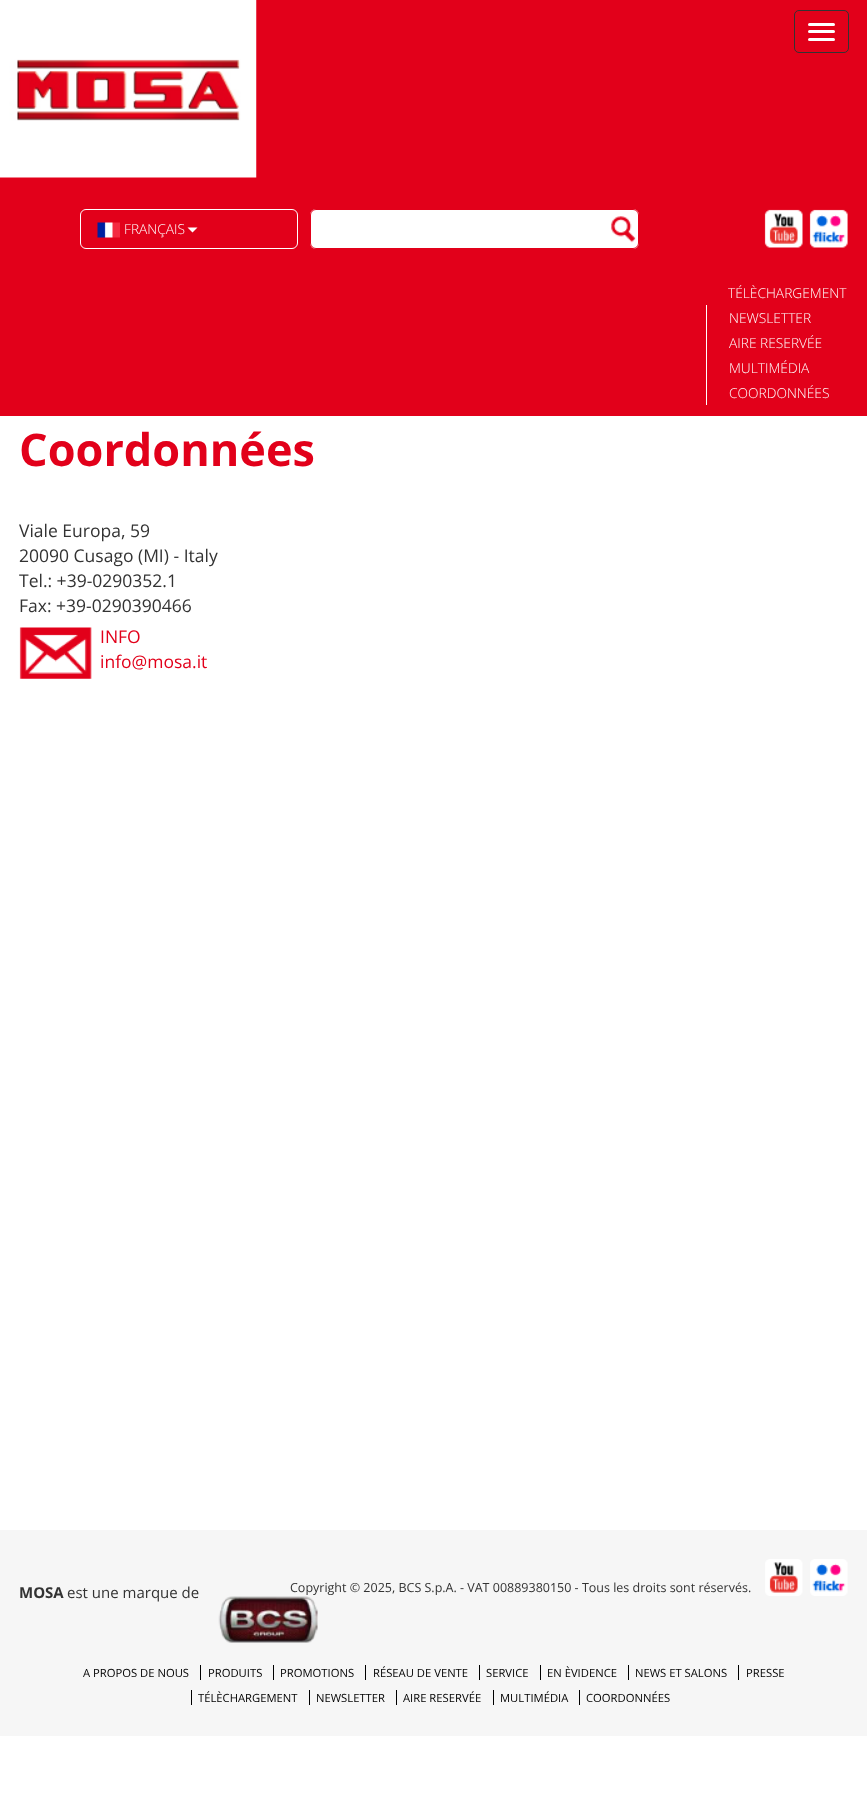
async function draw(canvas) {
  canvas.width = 867
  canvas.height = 1793
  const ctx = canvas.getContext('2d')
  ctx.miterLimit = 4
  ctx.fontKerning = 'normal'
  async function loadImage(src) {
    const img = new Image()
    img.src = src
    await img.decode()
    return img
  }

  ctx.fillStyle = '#fff'
  ctx.fillRect(0, 0, 867, 1793)
  ctx.fillStyle = '#e2001a'
  ctx.fillRect(0, 0, 867, 416)
  ctx.drawImage(await loadImage('image0.png'), 0, 0, 257, 178)
  ctx.beginPath()
  ctx.roundRect(794.5, 10.5, 54, 42, 4.5)
  ctx.strokeStyle = '#333'
  ctx.stroke()
  ctx.fillStyle = '#fff'
  ctx.beginPath()
  ctx.roundRect(808, 23, 27, 3, 1.5)
  ctx.fill()
  ctx.beginPath()
  ctx.roundRect(808, 30, 27, 3, 1.5)
  ctx.fill()
  ctx.beginPath()
  ctx.roundRect(808, 38, 27, 3, 1.5)
  ctx.fill()
  ctx.beginPath()
  ctx.roundRect(80.5, 209.5, 217, 39, 5.5)
  ctx.strokeStyle = '#fff'
  ctx.stroke()
  ctx.drawImage(await loadImage('image1.png'), 97, 222, 23, 16)
  ctx.font = '300 13.75px Open Sans'
  ctx.fillText('FRANÇAIS', 124, 234)
  ctx.beginPath()
  ctx.moveTo(187.5, 227.5)
  ctx.lineTo(197.5, 227.5)
  ctx.lineTo(192.5, 232.5)
  ctx.closePath()
  ctx.fill()
  ctx.beginPath()
  ctx.roundRect(310, 209, 329, 40, 6)
  ctx.fill()
  ctx.drawImage(await loadImage('image2.png'), 611, 216, 25, 27)
  ctx.beginPath()
  ctx.roundRect(310.5, 209.5, 328, 39, 5.5)
  ctx.strokeStyle = '#e2001a'
  ctx.stroke()
  ctx.drawImage(await loadImage('image3.png'), 764, 209, 39, 39)
  ctx.drawImage(await loadImage('image4.png'), 809, 209, 39, 39)
  ctx.fillText('TÉLÈCHARGEMENT', 728, 298)
  ctx.fillRect(706, 305, 1, 100)
  ctx.fillText('NEWSLETTER', 729, 323)
  ctx.fillText('AIRE RESERVÉE', 729, 348)
  ctx.fillText('MULTIMÉDIA', 729, 373)
  ctx.fillText('COORDONNÉES', 729, 398)
  ctx.font = 'bold 45px Open Sans'
  ctx.fillStyle = '#e2001a'
  ctx.fillText('Coordonnées', 19, 466)
  ctx.font = '17.5px Open Sans'
  ctx.fillStyle = '#333'
  ctx.fillText('Viale Europa, 59', 19, 537)
  ctx.fillText('20090 Cusago (MI) - Italy', 19, 562)
  ctx.fillText('Tel.: +39-0290352.1', 19, 587)
  ctx.fillText('Fax: +39-0290390466', 19, 612)
  ctx.drawImage(await loadImage('image5.png'), 19, 627, 73, 52)
  ctx.fillStyle = '#e2001a'
  ctx.fillText('INFO', 100, 643)
  ctx.fillText('info@mosa.it', 100, 668)
  ctx.fillStyle = '#f6f6f6'
  ctx.fillRect(0, 1530, 867, 206)
  ctx.font = 'bold 15px Open Sans'
  ctx.fillStyle = '#333'
  ctx.fillText('MOSA', 19, 1598)
  ctx.font = '15px Open Sans'
  ctx.fillText('est une marque de', 67, 1598)
  ctx.font = '12.5px Open Sans'
  ctx.fillText('Copyright © 2025, BCS S.p.A. - VAT 00889380150 - Tous les droits sont réservés.', 290, 1592)
  ctx.drawImage(await loadImage('image6.png'), 765, 1559, 38, 37)
  ctx.drawImage(await loadImage('image7.png'), 810, 1559, 38, 37)
  ctx.drawImage(await loadImage('image8.png'), 218, 1596, 100, 47)
  ctx.font = '11.25px Open Sans'
  ctx.fillStyle = '#000'
  ctx.fillText('A PROPOS DE NOUS', 83, 1677)
  ctx.fillRect(200, 1665, 1, 15)
  ctx.fillText('PRODUITS', 208, 1677)
  ctx.fillRect(273, 1665, 1, 15)
  ctx.fillText('PROMOTIONS', 280, 1677)
  ctx.fillRect(365, 1665, 1, 15)
  ctx.fillText('RÉSEAU DE VENTE', 373, 1677)
  ctx.fillRect(479, 1665, 1, 15)
  ctx.fillText('SERVICE', 486, 1677)
  ctx.fillRect(540, 1665, 1, 15)
  ctx.fillText('EN ÈVIDENCE', 547, 1677)
  ctx.fillRect(628, 1665, 1, 15)
  ctx.fillText('NEWS ET SALONS', 635, 1677)
  ctx.fillRect(738, 1665, 1, 15)
  ctx.fillText('PRESSE', 746, 1677)
  ctx.fillRect(191, 1690, 1, 15)
  ctx.fillText('TÉLÈCHARGEMENT', 198, 1702)
  ctx.fillRect(309, 1690, 1, 15)
  ctx.fillText('NEWSLETTER', 316, 1702)
  ctx.fillRect(396, 1690, 1, 15)
  ctx.fillText('AIRE RESERVÉE', 403, 1702)
  ctx.fillRect(493, 1690, 1, 15)
  ctx.fillText('MULTIMÉDIA', 500, 1702)
  ctx.fillRect(579, 1690, 1, 15)
  ctx.fillText('COORDONNÉES', 586, 1702)
}

draw(document.querySelector('canvas'))
